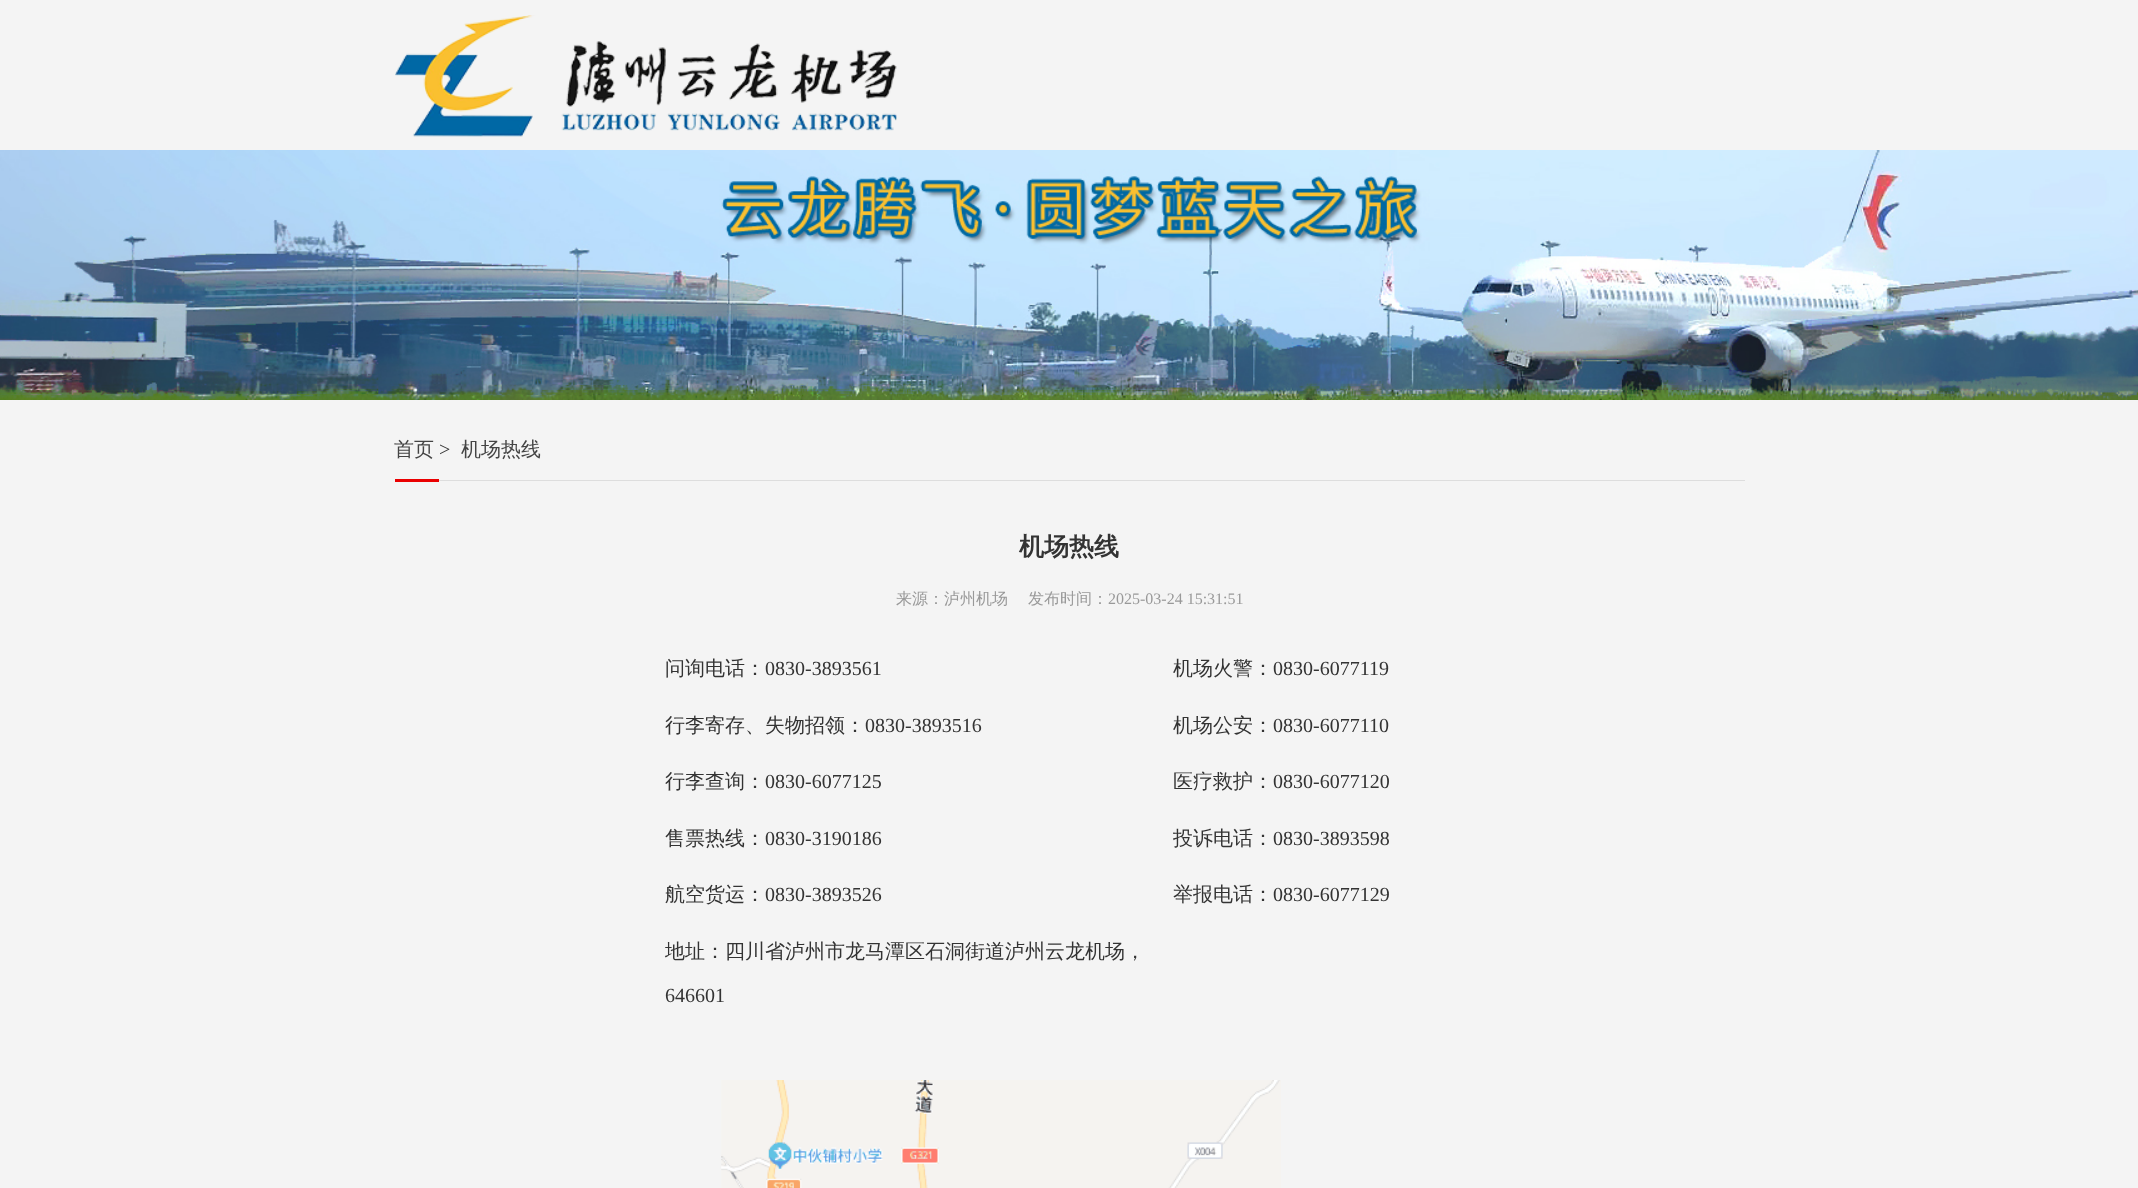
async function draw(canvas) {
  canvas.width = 2138
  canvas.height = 1188
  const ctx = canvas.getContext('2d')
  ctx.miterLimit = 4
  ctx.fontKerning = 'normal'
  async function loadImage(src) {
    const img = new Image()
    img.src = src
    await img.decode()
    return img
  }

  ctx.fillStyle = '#f4f4f4'
  ctx.fillRect(0, 0, 2138, 1188)
  ctx.drawImage(await loadImage('image0.png'), 395, 15, 502, 122)
  ctx.drawImage(await loadImage('image1.png'), 0, 150, 2138, 250)
  ctx.fillStyle = '#ddd'
  ctx.fillRect(439, 480, 1306, 1)
  ctx.font = '500 20px WenQuanYi Zen Hei'
  ctx.fillStyle = '#444'
  ctx.fillText('首页', 394, 456)
  ctx.font = '20px Liberation Serif'
  ctx.fillStyle = '#333'
  ctx.fillText('>', 439, 456)
  ctx.font = '500 20px WenQuanYi Zen Hei'
  ctx.fillStyle = '#444'
  ctx.fillText('机场热线', 461, 456)
  ctx.fillStyle = '#ea0001'
  ctx.fillRect(395, 479, 44, 3)
  ctx.font = 'bold 25px WenQuanYi Zen Hei'
  ctx.fillStyle = '#333'
  ctx.fillText('机场热线', 1019, 555)
  ctx.font = '500 16px WenQuanYi Zen Hei'
  ctx.fillStyle = '#999'
  ctx.fillText('来源：泸州机场', 896, 604)
  ctx.fillText('发布时间：', 1028, 604)
  ctx.font = '16px Liberation Serif'
  ctx.fillText('2025-03-24 15:31:51', 1108, 604)
  ctx.font = '500 20px WenQuanYi Zen Hei'
  ctx.fillStyle = '#333'
  ctx.fillText('问询电话：', 665, 675)
  ctx.font = '20px Liberation Serif'
  ctx.fillText('0830-3893561', 765, 675)
  ctx.font = '500 20px WenQuanYi Zen Hei'
  ctx.fillText('机场火警：', 1173, 675)
  ctx.font = '20px Liberation Serif'
  ctx.fillText('0830-6077119', 1273, 675)
  ctx.font = '500 20px WenQuanYi Zen Hei'
  ctx.fillText('行李寄存、失物招领：', 665, 732)
  ctx.font = '20px Liberation Serif'
  ctx.fillText('0830-3893516', 865, 732)
  ctx.font = '500 20px WenQuanYi Zen Hei'
  ctx.fillText('机场公安：', 1173, 732)
  ctx.font = '20px Liberation Serif'
  ctx.fillText('0830-6077110', 1273, 732)
  ctx.font = '500 20px WenQuanYi Zen Hei'
  ctx.fillText('行李查询：', 665, 788)
  ctx.font = '20px Liberation Serif'
  ctx.fillText('0830-6077125', 765, 788)
  ctx.font = '500 20px WenQuanYi Zen Hei'
  ctx.fillText('医疗救护：', 1173, 788)
  ctx.font = '20px Liberation Serif'
  ctx.fillText('0830-6077120', 1273, 788)
  ctx.font = '500 20px WenQuanYi Zen Hei'
  ctx.fillText('售票热线：', 665, 845)
  ctx.font = '20px Liberation Serif'
  ctx.fillText('0830-3190186', 765, 845)
  ctx.font = '500 20px WenQuanYi Zen Hei'
  ctx.fillText('投诉电话：', 1173, 845)
  ctx.font = '20px Liberation Serif'
  ctx.fillText('0830-3893598', 1273, 845)
  ctx.font = '500 20px WenQuanYi Zen Hei'
  ctx.fillText('航空货运：', 665, 901)
  ctx.font = '20px Liberation Serif'
  ctx.fillText('0830-3893526', 765, 901)
  ctx.font = '500 20px WenQuanYi Zen Hei'
  ctx.fillText('举报电话：', 1173, 901)
  ctx.font = '20px Liberation Serif'
  ctx.fillText('0830-6077129', 1273, 901)
  ctx.font = '500 20px WenQuanYi Zen Hei'
  ctx.fillText('地址：四川省泸州市龙马潭区石洞街道泸州云龙机场，', 665, 958)
  ctx.font = '20px Liberation Serif'
  ctx.fillText('646601', 665, 1002)
  ctx.drawImage(await loadImage('image2.png'), 721, 1080, 560, 108)
}

draw(document.querySelector('canvas'))
